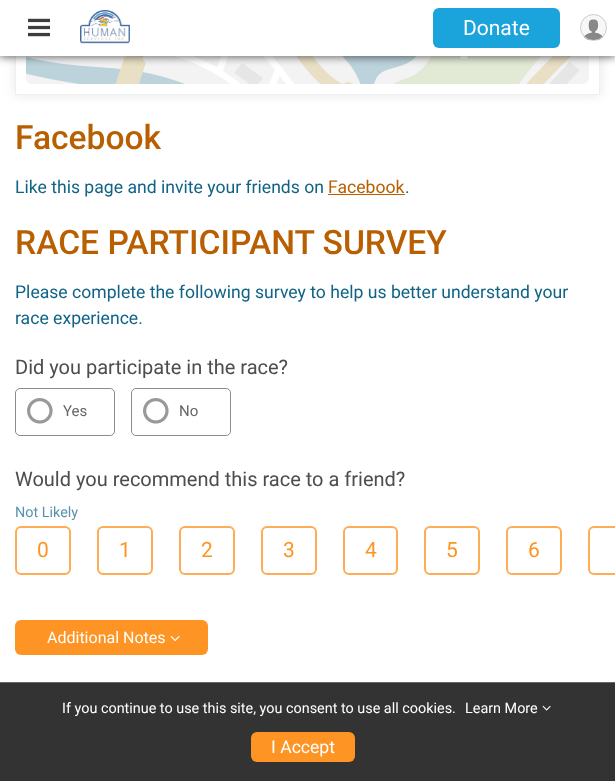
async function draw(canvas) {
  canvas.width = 615
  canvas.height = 781
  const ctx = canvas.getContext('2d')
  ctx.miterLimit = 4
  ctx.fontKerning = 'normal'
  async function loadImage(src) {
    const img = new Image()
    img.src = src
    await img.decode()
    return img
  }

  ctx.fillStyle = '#fff'
  ctx.fillRect(0, 0, 615, 781)
  ctx.save()
  ctx.beginPath()
  ctx.moveTo(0, 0)
  ctx.lineTo(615, 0)
  ctx.lineTo(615, 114)
  ctx.lineTo(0, 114)
  ctx.closePath()
  ctx.moveTo(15, -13)
  ctx.lineTo(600, -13)
  ctx.lineTo(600, 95)
  ctx.lineTo(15, 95)
  ctx.closePath()
  ctx.clip('evenodd')
  ctx.fillStyle = '#0000001a'
  ctx.filter = 'blur(6px)'
  ctx.beginPath()
  ctx.rect(15, -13, 585, 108)
  ctx.fill()
  ctx.filter = 'none'
  ctx.restore()
  ctx.strokeStyle = '#efefef'
  ctx.strokeRect(15.5, -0.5, 584, 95)
  ctx.drawImage(await loadImage('image3.png'), 26, 56, 563, 28)
  ctx.fillStyle = '#00000099'
  ctx.filter = 'blur(4px)'
  ctx.beginPath()
  ctx.rect(-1, -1, 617, 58)
  ctx.fill()
  ctx.filter = 'none'
  ctx.fillStyle = '#fff'
  ctx.fillRect(0, 0, 615, 56)
  ctx.drawImage(await loadImage('image0.png'), 28, 18, 22, 19)
  ctx.drawImage(await loadImage('image1.png'), 80, 10, 50, 34)
  ctx.fillStyle = '#1ba3dc'
  ctx.beginPath()
  ctx.roundRect(433, 8, 127, 40, 6)
  ctx.fill()
  ctx.font = '21px Roboto'
  ctx.fillStyle = '#fff'
  ctx.fillText('Donate', 463, 35)
  ctx.drawImage(await loadImage('image2.png'), 581, 15, 25, 25)
  ctx.beginPath()
  ctx.arc(593.5, 27.5, 13, 0, 2 * Math.PI)
  ctx.strokeStyle = '#ccc'
  ctx.stroke()
  ctx.font = '500 33.6px Roboto'
  ctx.fillStyle = '#b75f01'
  ctx.fillText('Facebook', 15, 149)
  ctx.font = '17.6px Roboto'
  ctx.fillStyle = '#106386'
  ctx.fillText('Like this page and invite your friends on', 15, 193)
  ctx.fillStyle = '#b75f01'
  ctx.fillText('Facebook', 328, 193)
  ctx.fillRect(328, 194, 77, 1)
  ctx.fillStyle = '#106386'
  ctx.fillText('.', 405, 193)
  ctx.font = '500 33.6px Roboto'
  ctx.fillStyle = '#b75f01'
  ctx.fillText('RACE PARTICIPANT SURVEY', 15, 254)
  ctx.font = '17.6px Roboto'
  ctx.fillStyle = '#106386'
  ctx.fillText('Please complete the following survey to help us better understand your', 15, 298)
  ctx.fillText('race experience.', 15, 324)
  ctx.font = '20px Roboto'
  ctx.fillStyle = '#4d4d4d'
  ctx.fillText('Did you participate in the race?', 15, 374)
  ctx.beginPath()
  ctx.roundRect(15.5, 388.5, 99, 47, 4.5)
  ctx.strokeStyle = '#8c8c8c'
  ctx.stroke()
  ctx.drawImage(await loadImage('image4.png'), 27, 398, 26, 26)
  ctx.font = '15px Roboto'
  ctx.fillStyle = '#666'
  ctx.fillText('Yes', 63, 416)
  ctx.beginPath()
  ctx.roundRect(131.5, 388.5, 99, 47, 4.5)
  ctx.stroke()
  ctx.drawImage(await loadImage('image4.png'), 143, 398, 26, 26)
  ctx.fillText('No', 179, 416)
  ctx.font = '20px Roboto'
  ctx.fillStyle = '#4d4d4d'
  ctx.fillText('Would you recommend this race to a friend?', 15, 486)
  ctx.font = '14.4px Roboto'
  ctx.fillStyle = '#5892aa'
  ctx.fillText('Not Likely', 15, 517)
  ctx.beginPath()
  ctx.roundRect(16, 527, 54, 47, 5)
  ctx.strokeStyle = '#fead56'
  ctx.lineWidth = 2
  ctx.stroke()
  ctx.font = '21px Roboto'
  ctx.fillStyle = '#fe9423'
  ctx.fillText('0', 37, 557)
  ctx.beginPath()
  ctx.roundRect(98, 527, 54, 47, 5)
  ctx.stroke()
  ctx.fillText('1', 119, 557)
  ctx.beginPath()
  ctx.roundRect(180, 527, 54, 47, 5)
  ctx.stroke()
  ctx.fillText('2', 201, 557)
  ctx.beginPath()
  ctx.roundRect(262, 527, 54, 47, 5)
  ctx.stroke()
  ctx.fillText('3', 283, 557)
  ctx.beginPath()
  ctx.roundRect(344, 527, 53, 47, 5)
  ctx.stroke()
  ctx.fillText('4', 365, 557)
  ctx.beginPath()
  ctx.roundRect(425, 527, 54, 47, 5)
  ctx.stroke()
  ctx.fillText('5', 446, 557)
  ctx.beginPath()
  ctx.roundRect(507, 527, 54, 47, 5)
  ctx.stroke()
  ctx.fillText('6', 528, 557)
  ctx.beginPath()
  ctx.roundRect(589, 527, 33, 47, 5)
  ctx.stroke()
  ctx.beginPath()
  ctx.roundRect(15, 620, 193, 35, 6)
  ctx.fill()
  ctx.font = '16px Roboto'
  ctx.fillStyle = '#fff'
  ctx.fillText('Additional Notes', 47, 643)
  ctx.drawImage(await loadImage('image5.png'), 170, 636, 10, 6)
  ctx.fillStyle = '#333'
  ctx.fillRect(0, 683, 615, 98)
  ctx.fillStyle = '#666'
  ctx.fillRect(0, 682, 615, 1)
  ctx.font = '14.4px Roboto'
  ctx.fillStyle = '#fff'
  ctx.fillText('If you continue to use this site, you consent to use all cookies.', 62, 713)
  ctx.fillText('Learn More', 465, 713)
  ctx.drawImage(await loadImage('image6.png'), 542, 705, 9, 6)
  ctx.fillStyle = '#fe9423'
  ctx.beginPath()
  ctx.roundRect(251, 732, 104, 30, 6)
  ctx.fill()
  ctx.font = '17.6px Roboto'
  ctx.fillStyle = '#fff'
  ctx.fillText('I Accept', 271, 753)
}

draw(document.querySelector('canvas'))
